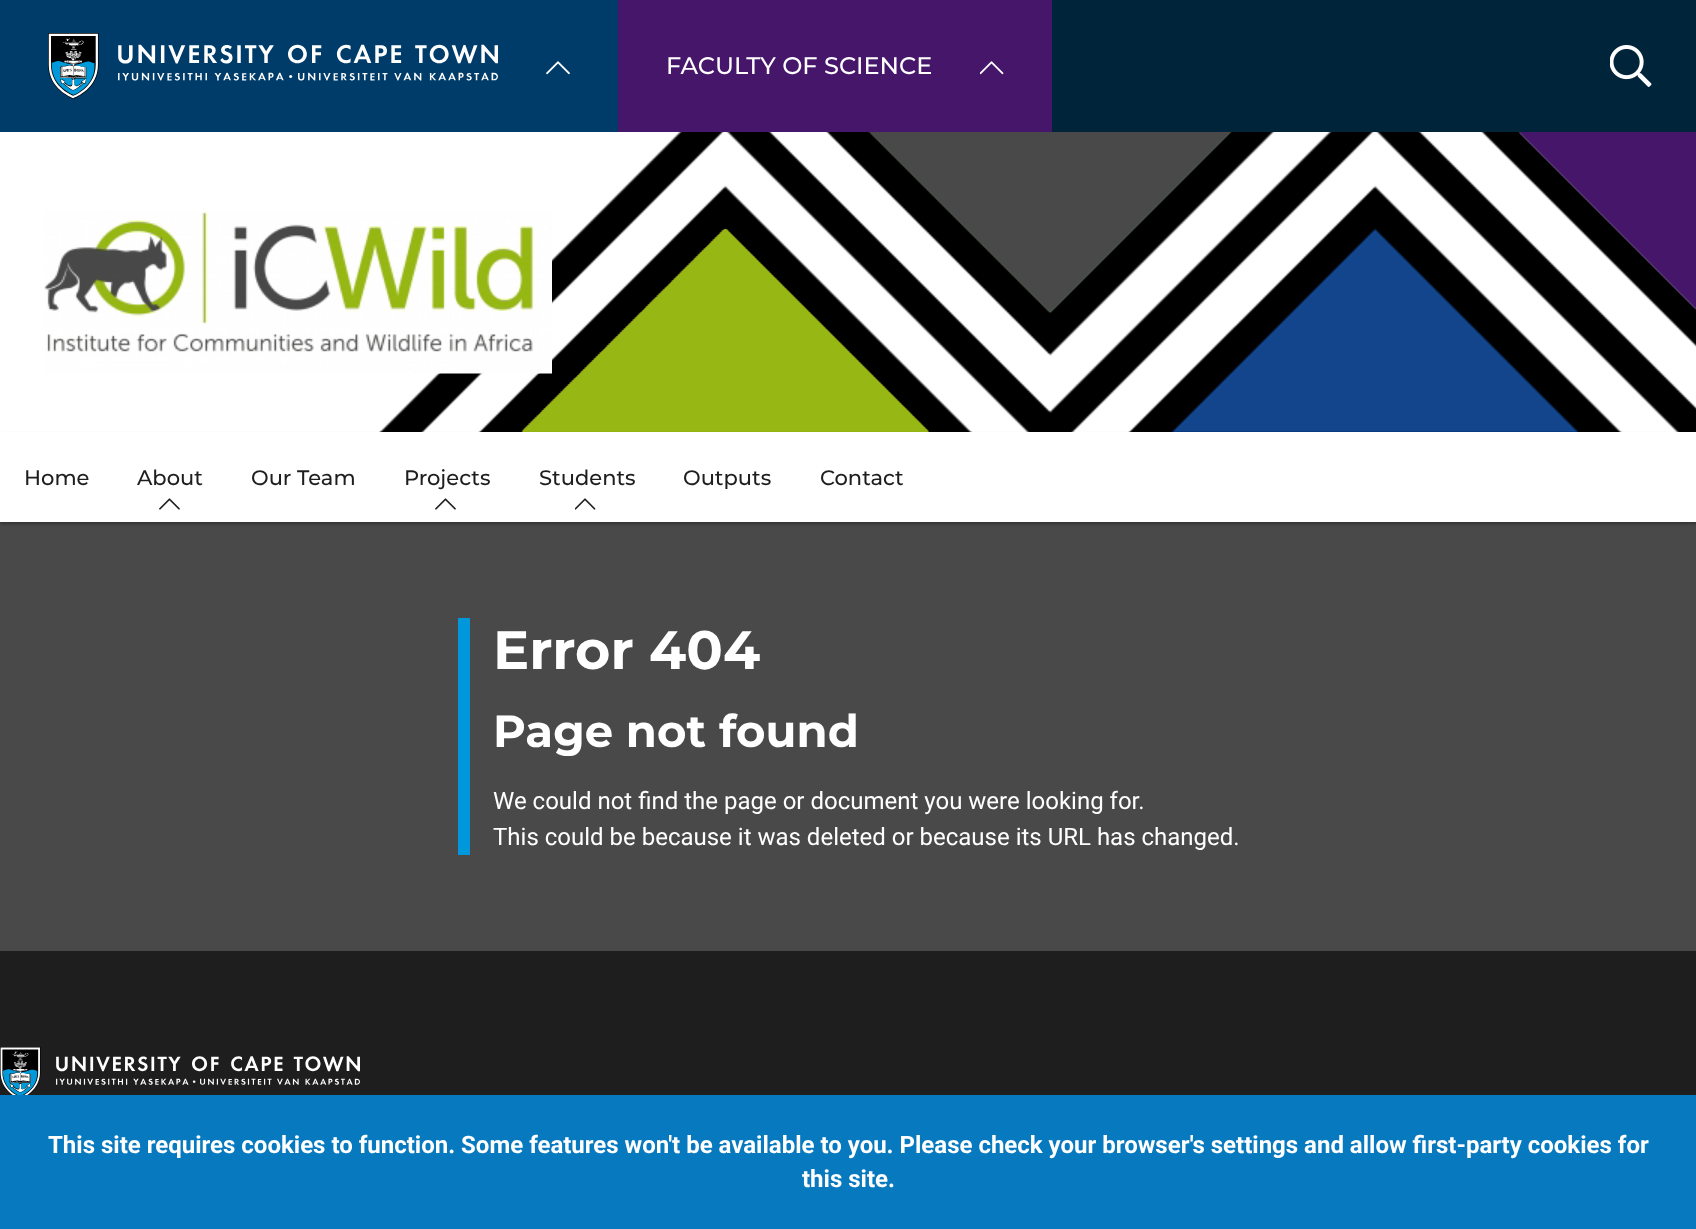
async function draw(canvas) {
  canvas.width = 1696
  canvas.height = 1229
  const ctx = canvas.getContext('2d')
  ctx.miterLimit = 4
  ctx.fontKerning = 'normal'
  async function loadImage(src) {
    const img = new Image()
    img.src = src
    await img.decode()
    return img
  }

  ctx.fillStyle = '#494949'
  ctx.fillRect(0, 0, 1696, 1229)
  ctx.fillStyle = '#00243a'
  ctx.fillRect(1052, 0, 644, 132)
  ctx.fillStyle = '#003c69'
  ctx.fillRect(0, 0, 618, 132)
  ctx.drawImage(await loadImage('image0.png'), 48, 33, 450, 66)
  ctx.drawImage(await loadImage('image1.png'), 546, 61, 24, 14)
  ctx.fillStyle = '#46166b'
  ctx.fillRect(618, 0, 434, 132)
  ctx.font = '500 24px Montserrat'
  ctx.fillStyle = '#fff'
  ctx.fillText('FACULTY OF SCIENCE', 666, 74)
  ctx.drawImage(await loadImage('image2.png'), 980, 61, 24, 14)
  ctx.drawImage(await loadImage('image3.png'), 1610, 45, 42, 42)
  ctx.fillRect(0, 132, 683, 300)
  ctx.drawImage(await loadImage('image4.png'), 379, 132, 1317, 300)
  ctx.drawImage(await loadImage('image5.png'), 44, 211, 508, 163)
  ctx.fillStyle = '#0000004d'
  ctx.filter = 'blur(1.5px)'
  ctx.beginPath()
  ctx.rect(0, 434, 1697, 90)
  ctx.fill()
  ctx.filter = 'none'
  ctx.fillStyle = '#fff'
  ctx.fillRect(0, 432, 1696, 90)
  ctx.font = '500 21px Montserrat'
  ctx.fillStyle = '#1e1e1e'
  ctx.fillText('Home', 24, 485)
  ctx.fillText('About', 137, 485)
  ctx.drawImage(await loadImage('image6.png'), 159, 498, 21, 12)
  ctx.fillText('Our Team', 251, 485)
  ctx.fillText('Projects', 404, 485)
  ctx.drawImage(await loadImage('image6.png'), 435, 498, 21, 12)
  ctx.fillText('Students', 539, 485)
  ctx.drawImage(await loadImage('image7.png'), 575, 498, 21, 12)
  ctx.fillText('Outputs', 683, 485)
  ctx.fillText('Contact', 820, 485)
  ctx.fillStyle = '#0098db'
  ctx.fillRect(458, 618, 12, 237)
  ctx.font = 'bold 54px Montserrat'
  ctx.fillStyle = '#fff'
  ctx.fillText('Error 404', 493, 669)
  ctx.font = 'bold 45px Montserrat'
  ctx.fillText('Page not found', 493, 747)
  ctx.font = '24px Roboto'
  ctx.fillText('We could not find the page or document you were looking for.', 493, 809)
  ctx.fillText('This could be because it was deleted or because its URL has changed.', 493, 845)
  ctx.fillStyle = '#1e1e1e'
  ctx.fillRect(0, 951, 1696, 144)
  ctx.drawImage(await loadImage('image8.png'), 0, 1047, 360, 48)
  ctx.fillStyle = '#0779bf'
  ctx.fillRect(0, 1095, 1696, 134)
  ctx.font = 'bold 24px Roboto'
  ctx.fillStyle = '#fff'
  ctx.fillText('This site requires cookies to function. Some features won\'t be available to you. Please check your browser\'s settings and allow first-party cookies for', 48, 1153)
  ctx.fillText('this site.', 802, 1187)
}

draw(document.querySelector('canvas'))
